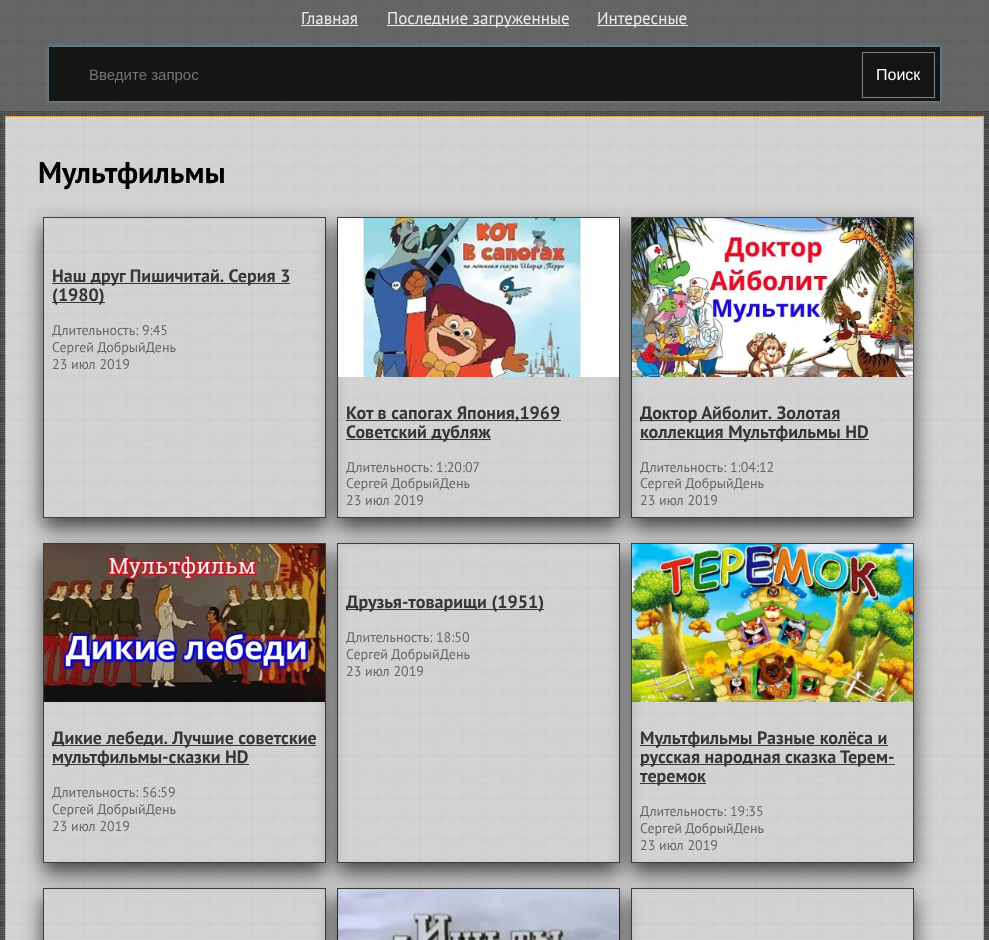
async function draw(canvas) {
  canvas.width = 989
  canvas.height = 940
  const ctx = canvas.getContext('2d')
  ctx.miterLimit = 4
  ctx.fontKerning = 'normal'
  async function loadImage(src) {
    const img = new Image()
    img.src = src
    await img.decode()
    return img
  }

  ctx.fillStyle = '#fff'
  ctx.fillRect(0, 0, 989, 940)
  ctx.drawImage(await loadImage('image0.png'), 0, 0, 989, 940)
  ctx.fillStyle = '#6a6a6acc'
  ctx.fillRect(0, 0, 989, 111)
  ctx.font = '17px PT Sans'
  ctx.fillStyle = '#ececec'
  ctx.fillText('Главная', 301, 24)
  ctx.fillRect(301, 25, 57, 1)
  ctx.fillRect(387, 25, 182, 1)
  ctx.fillText('Последние загруженные', 387, 24)
  ctx.fillRect(597, 25, 91, 1)
  ctx.fillText('Интересные', 597, 24)
  ctx.fillStyle = '#67ccff80'
  ctx.filter = 'blur(2px)'
  ctx.beginPath()
  ctx.rect(49, 47, 891, 54)
  ctx.fill()
  ctx.filter = 'none'
  ctx.fillStyle = '#151515'
  ctx.fillRect(49, 47, 891, 54)
  ctx.font = '15px Liberation Sans'
  ctx.fillStyle = '#757575'
  ctx.fillText('Введите запрос', 89, 80)
  ctx.strokeStyle = '#808080'
  ctx.strokeRect(862.5, 52.5, 72, 45)
  ctx.font = '16px Liberation Sans'
  ctx.fillStyle = '#fff'
  ctx.fillText('Поиск', 876, 80)
  ctx.fillStyle = '#fdfdfdbf'
  ctx.fillRect(5, 116, 979, 824)
  ctx.strokeStyle = '#f8890199'
  ctx.strokeRect(5.5, 116.5, 978, 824)
  ctx.font = 'bold 30px PT Sans'
  ctx.fillStyle = '#000'
  ctx.fillText('Мультфильмы', 38, 183)
  ctx.save()
  ctx.beginPath()
  ctx.moveTo(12, 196)
  ctx.lineTo(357, 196)
  ctx.lineTo(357, 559)
  ctx.lineTo(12, 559)
  ctx.closePath()
  ctx.moveTo(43, 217)
  ctx.lineTo(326, 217)
  ctx.lineTo(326, 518)
  ctx.lineTo(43, 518)
  ctx.closePath()
  ctx.clip('evenodd')
  ctx.fillStyle = '#000000ab'
  ctx.filter = 'blur(10px)'
  ctx.beginPath()
  ctx.rect(43, 227, 283, 301)
  ctx.fill()
  ctx.filter = 'none'
  ctx.restore()
  ctx.strokeStyle = '#000000b3'
  ctx.strokeRect(43.5, 217.5, 282, 300)
  ctx.fillStyle = '#363636'
  ctx.fillRect(52, 283, 238, 1)
  ctx.font = 'bold 18px PT Sans'
  ctx.fillText('Наш друг Пишичитай. Серия 3', 52, 282)
  ctx.fillRect(52, 302, 53, 1)
  ctx.fillText('(1980)', 52, 301)
  ctx.font = '14px PT Sans'
  ctx.fillStyle = '#666'
  ctx.fillText('Длительность: 9:45', 52, 335)
  ctx.fillText('Сергей ДобрыйДень', 52, 352)
  ctx.fillText('23 июл 2019', 52, 369)
  ctx.save()
  ctx.beginPath()
  ctx.moveTo(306, 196)
  ctx.lineTo(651, 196)
  ctx.lineTo(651, 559)
  ctx.lineTo(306, 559)
  ctx.closePath()
  ctx.moveTo(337, 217)
  ctx.lineTo(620, 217)
  ctx.lineTo(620, 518)
  ctx.lineTo(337, 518)
  ctx.closePath()
  ctx.clip('evenodd')
  ctx.fillStyle = '#000000ab'
  ctx.filter = 'blur(10px)'
  ctx.beginPath()
  ctx.rect(337, 227, 283, 301)
  ctx.fill()
  ctx.filter = 'none'
  ctx.restore()
  ctx.strokeRect(337.5, 217.5, 282, 300)
  ctx.save()
  ctx.beginPath()
  ctx.moveTo(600, 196)
  ctx.lineTo(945, 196)
  ctx.lineTo(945, 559)
  ctx.lineTo(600, 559)
  ctx.closePath()
  ctx.moveTo(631, 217)
  ctx.lineTo(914, 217)
  ctx.lineTo(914, 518)
  ctx.lineTo(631, 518)
  ctx.closePath()
  ctx.clip('evenodd')
  ctx.fillStyle = '#000000ab'
  ctx.filter = 'blur(10px)'
  ctx.beginPath()
  ctx.rect(631, 227, 283, 301)
  ctx.fill()
  ctx.filter = 'none'
  ctx.restore()
  ctx.drawImage(await loadImage('image1.png'), 338, 218, 281, 159)
  ctx.fillStyle = '#363636'
  ctx.fillRect(346, 420, 215, 1)
  ctx.font = 'bold 18px PT Sans'
  ctx.fillText('Кот в сапогах Япония,1969', 346, 419)
  ctx.fillRect(346, 439, 145, 1)
  ctx.fillText('Советский дубляж', 346, 438)
  ctx.font = '14px PT Sans'
  ctx.fillStyle = '#666'
  ctx.fillText('Длительность: 1:20:07', 346, 472)
  ctx.fillText('Сергей ДобрыйДень', 346, 488)
  ctx.fillText('23 июл 2019', 346, 505)
  ctx.strokeRect(631.5, 217.5, 282, 300)
  ctx.drawImage(await loadImage('image2.png'), 632, 218, 281, 159)
  ctx.fillStyle = '#363636'
  ctx.fillRect(640, 420, 200, 1)
  ctx.font = 'bold 18px PT Sans'
  ctx.fillText('Доктор Айболит. Золотая', 640, 419)
  ctx.fillRect(640, 439, 229, 1)
  ctx.fillText('коллекция Мультфильмы HD', 640, 438)
  ctx.font = '14px PT Sans'
  ctx.fillStyle = '#666'
  ctx.fillText('Длительность: 1:04:12', 640, 472)
  ctx.fillText('Сергей ДобрыйДень', 640, 488)
  ctx.fillText('23 июл 2019', 640, 505)
  ctx.save()
  ctx.beginPath()
  ctx.moveTo(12, 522)
  ctx.lineTo(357, 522)
  ctx.lineTo(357, 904)
  ctx.lineTo(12, 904)
  ctx.closePath()
  ctx.moveTo(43, 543)
  ctx.lineTo(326, 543)
  ctx.lineTo(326, 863)
  ctx.lineTo(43, 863)
  ctx.closePath()
  ctx.clip('evenodd')
  ctx.fillStyle = '#000000ab'
  ctx.filter = 'blur(10px)'
  ctx.beginPath()
  ctx.rect(43, 553, 283, 320)
  ctx.fill()
  ctx.filter = 'none'
  ctx.restore()
  ctx.strokeRect(43.5, 543.5, 282, 319)
  ctx.fillStyle = '#363636'
  ctx.fillRect(52, 745, 264, 1)
  ctx.save()
  ctx.beginPath()
  ctx.moveTo(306, 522)
  ctx.lineTo(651, 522)
  ctx.lineTo(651, 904)
  ctx.lineTo(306, 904)
  ctx.closePath()
  ctx.moveTo(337, 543)
  ctx.lineTo(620, 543)
  ctx.lineTo(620, 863)
  ctx.lineTo(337, 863)
  ctx.closePath()
  ctx.clip('evenodd')
  ctx.fillStyle = '#000000ab'
  ctx.filter = 'blur(10px)'
  ctx.beginPath()
  ctx.rect(337, 553, 283, 320)
  ctx.fill()
  ctx.filter = 'none'
  ctx.restore()
  ctx.strokeRect(337.5, 543.5, 282, 319)
  ctx.fillRect(346, 609, 198, 1)
  ctx.font = 'bold 18px PT Sans'
  ctx.fillText('Друзья-товарищи (1951)', 346, 608)
  ctx.font = '14px PT Sans'
  ctx.fillStyle = '#666'
  ctx.fillText('Длительность: 18:50', 346, 642)
  ctx.fillText('Сергей ДобрыйДень', 346, 659)
  ctx.fillText('23 июл 2019', 346, 676)
  ctx.drawImage(await loadImage('image3.png'), 44, 544, 281, 158)
  ctx.font = 'bold 18px PT Sans'
  ctx.fillStyle = '#363636'
  ctx.fillText('Дикие лебеди. Лучшие советские', 52, 744)
  ctx.fillRect(52, 764, 197, 1)
  ctx.fillText('мультфильмы-сказки HD', 52, 763)
  ctx.font = '14px PT Sans'
  ctx.fillStyle = '#666'
  ctx.fillText('Длительность: 56:59', 52, 797)
  ctx.fillText('Сергей ДобрыйДень', 52, 814)
  ctx.fillText('23 июл 2019', 52, 831)
  ctx.save()
  ctx.beginPath()
  ctx.moveTo(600, 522)
  ctx.lineTo(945, 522)
  ctx.lineTo(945, 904)
  ctx.lineTo(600, 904)
  ctx.closePath()
  ctx.moveTo(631, 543)
  ctx.lineTo(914, 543)
  ctx.lineTo(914, 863)
  ctx.lineTo(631, 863)
  ctx.closePath()
  ctx.clip('evenodd')
  ctx.fillStyle = '#000000ab'
  ctx.filter = 'blur(10px)'
  ctx.beginPath()
  ctx.rect(631, 553, 283, 320)
  ctx.fill()
  ctx.filter = 'none'
  ctx.restore()
  ctx.strokeRect(631.5, 543.5, 282, 319)
  ctx.drawImage(await loadImage('image4.png'), 632, 544, 281, 158)
  ctx.fillStyle = '#363636'
  ctx.fillRect(640, 745, 248, 1)
  ctx.font = 'bold 18px PT Sans'
  ctx.fillText('Мультфильмы Разные колёса и', 640, 744)
  ctx.fillRect(640, 764, 255, 1)
  ctx.fillText('русская народная сказка Терем-', 640, 763)
  ctx.fillRect(640, 783, 66, 1)
  ctx.fillText('теремок', 640, 782)
  ctx.font = '14px PT Sans'
  ctx.fillStyle = '#666'
  ctx.fillText('Длительность: 19:35', 640, 816)
  ctx.fillText('Сергей ДобрыйДень', 640, 833)
  ctx.fillText('23 июл 2019', 640, 850)
  ctx.save()
  ctx.beginPath()
  ctx.moveTo(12, 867)
  ctx.lineTo(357, 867)
  ctx.lineTo(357, 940)
  ctx.lineTo(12, 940)
  ctx.closePath()
  ctx.moveTo(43, 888)
  ctx.lineTo(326, 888)
  ctx.lineTo(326, 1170)
  ctx.lineTo(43, 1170)
  ctx.closePath()
  ctx.clip('evenodd')
  ctx.fillStyle = '#000000ab'
  ctx.filter = 'blur(10px)'
  ctx.beginPath()
  ctx.rect(43, 898, 283, 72)
  ctx.fill()
  ctx.filter = 'none'
  ctx.restore()
  ctx.strokeRect(43.5, 888.5, 282, 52)
  ctx.fillStyle = '#000000ab'
  ctx.filter = 'blur(10px)'
  ctx.beginPath()
  ctx.rect(337, 898, 283, 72)
  ctx.fill()
  ctx.filter = 'none'
  ctx.strokeRect(337.5, 888.5, 282, 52)
  ctx.save()
  ctx.beginPath()
  ctx.moveTo(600, 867)
  ctx.lineTo(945, 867)
  ctx.lineTo(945, 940)
  ctx.lineTo(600, 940)
  ctx.closePath()
  ctx.moveTo(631, 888)
  ctx.lineTo(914, 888)
  ctx.lineTo(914, 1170)
  ctx.lineTo(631, 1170)
  ctx.closePath()
  ctx.clip('evenodd')
  ctx.filter = 'blur(10px)'
  ctx.beginPath()
  ctx.rect(631, 898, 283, 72)
  ctx.fill()
  ctx.filter = 'none'
  ctx.restore()
  ctx.drawImage(await loadImage('image5.png'), 338, 889, 281, 51)
  ctx.strokeRect(631.5, 888.5, 282, 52)
}

draw(document.querySelector('canvas'))
